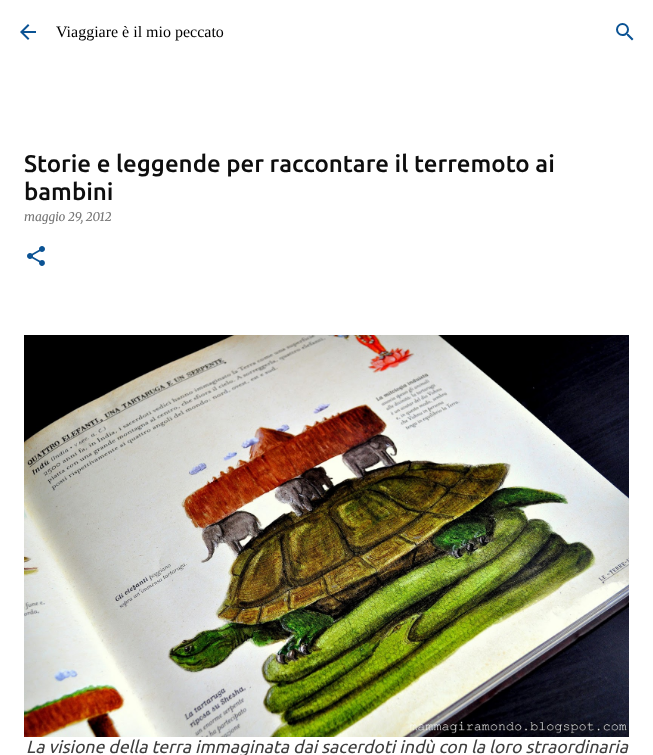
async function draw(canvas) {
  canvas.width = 653
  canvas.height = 755
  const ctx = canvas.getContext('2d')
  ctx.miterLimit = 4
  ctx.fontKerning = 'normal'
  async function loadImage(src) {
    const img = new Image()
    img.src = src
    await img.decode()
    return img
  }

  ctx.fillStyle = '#fff'
  ctx.fillRect(0, 0, 653, 755)
  ctx.drawImage(await loadImage('image0.png'), 20, 24, 16, 16)
  ctx.font = '16px Liberation Serif'
  ctx.fillStyle = '#000'
  ctx.fillText('Viaggiare è il mio peccato', 56, 37)
  ctx.drawImage(await loadImage('image1.png'), 616, 23, 18, 18)
  ctx.font = '500 24px Ubuntu'
  ctx.fillStyle = '#0e0e0e'
  ctx.fillText('Storie e leggende per raccontare il terremoto ai', 24, 172)
  ctx.fillText('bambini', 24, 200)
  ctx.font = 'italic 300 12px Merriweather'
  ctx.fillStyle = '#747474'
  ctx.fillText('maggio 29, 2012', 24, 221)
  ctx.drawImage(await loadImage('image2.png'), 27, 246, 18, 20)
  ctx.drawImage(await loadImage('image3.png'), 24, 335, 605, 402)
  ctx.font = 'italic 17.6px Ubuntu'
  ctx.fillStyle = '#3f3f3f'
  ctx.fillText('La visione della terra immaginata dai sacerdoti indù con la loro straordinaria', 26, 753)
}

draw(document.querySelector('canvas'))
